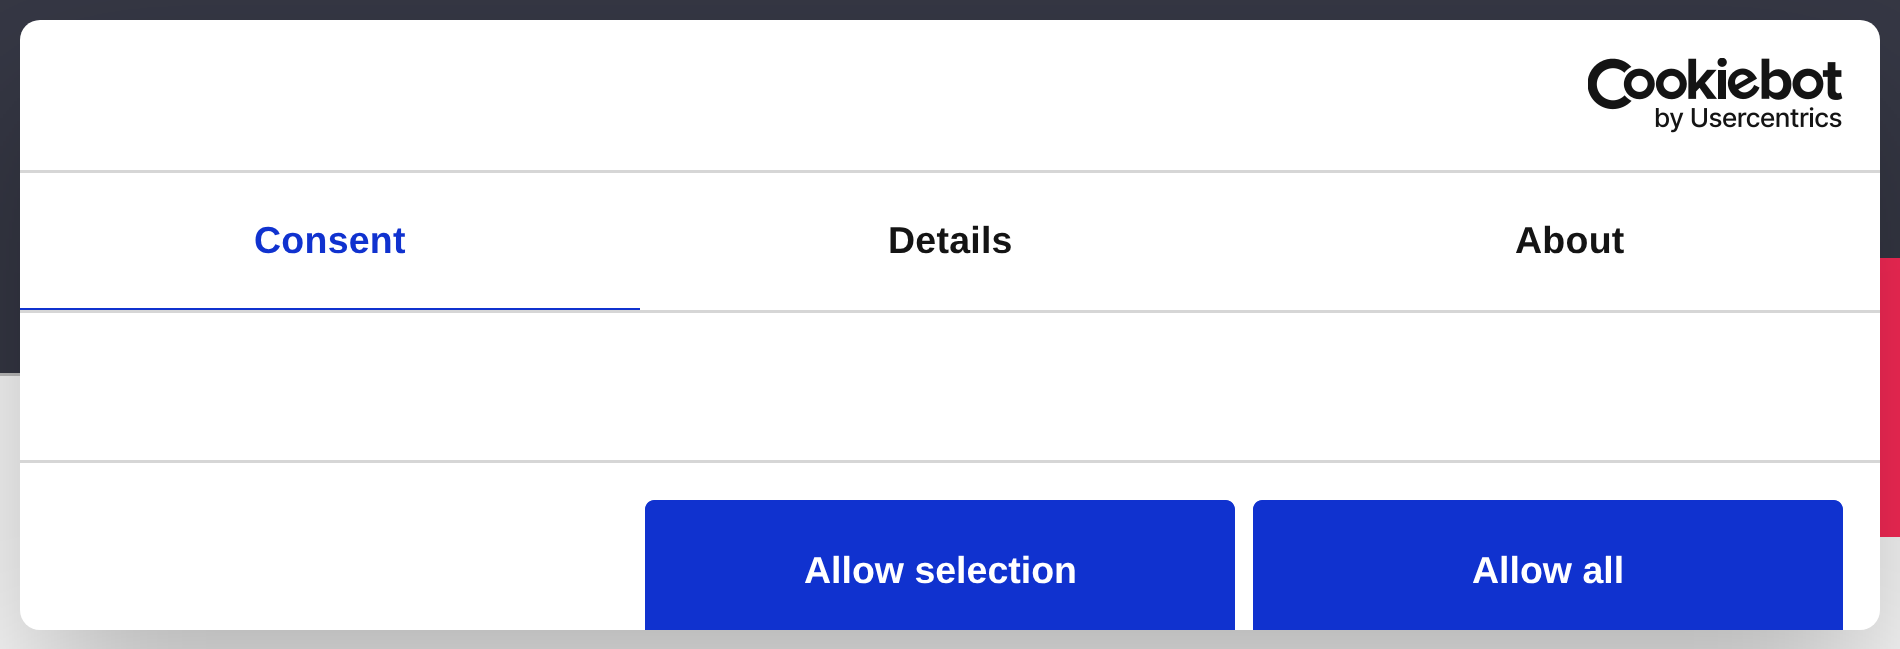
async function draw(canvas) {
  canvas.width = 1900
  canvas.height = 649
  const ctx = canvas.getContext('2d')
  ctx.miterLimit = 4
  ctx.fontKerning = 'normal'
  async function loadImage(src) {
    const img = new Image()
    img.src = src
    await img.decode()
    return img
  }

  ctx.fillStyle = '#fff'
  ctx.fillRect(0, 0, 1900, 649)
  ctx.fillStyle = '#363845'
  ctx.fillRect(0, 0, 1900, 373)
  ctx.fillStyle = '#c2c2c2'
  ctx.fillRect(0, 373, 20, 3)
  ctx.fillStyle = '#ff2b59'
  ctx.beginPath()
  ctx.moveTo(1900, 258)
  ctx.lineTo(1900, 537)
  ctx.lineTo(1780, 537)
  ctx.bezierCurveTo(1772, 537, 1765, 530, 1765, 522)
  ctx.lineTo(1765, 272)
  ctx.bezierCurveTo(1765, 264, 1772, 258, 1780, 258)
  ctx.closePath()
  ctx.fill()
  ctx.fillStyle = '#0000004d'
  ctx.filter = 'blur(85px)'
  ctx.beginPath()
  ctx.roundRect(20, 100, 1860, 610, 20)
  ctx.fill()
  ctx.filter = 'none'
  ctx.fillStyle = '#fff'
  ctx.beginPath()
  ctx.roundRect(20, 20, 1860, 610, 20)
  ctx.fill()
  ctx.fillStyle = '#d6d6d6'
  ctx.fillRect(20, 170, 1860, 3)
  ctx.drawImage(await loadImage('image0.png'), 1588, 58, 255, 75)
  ctx.fillRect(20, 310, 1860, 3)
  ctx.fillStyle = '#1032cf'
  ctx.fillRect(20, 308, 620, 2)
  ctx.letterSpacing = '0.25px'
  ctx.font = 'bold 37.5px Liberation Sans'
  ctx.fillText('Consent', 254, 253)
  ctx.fillStyle = '#141414'
  ctx.fillText('Details', 888, 253)
  ctx.fillText('About', 1515, 253)
  ctx.fillStyle = '#d6d6d6'
  ctx.fillRect(20, 460, 1860, 3)
  ctx.fillStyle = '#1032cf'
  ctx.beginPath()
  ctx.roundRect(645, 500, 590, 130, [10, 10, 0, 0])
  ctx.fill()
  ctx.beginPath()
  ctx.moveTo(655, 500)
  ctx.bezierCurveTo(649, 500, 645, 504, 645, 510)
  ctx.lineTo(645, 630)
  ctx.lineTo(650, 630)
  ctx.lineTo(650, 510)
  ctx.bezierCurveTo(650, 507, 652, 505, 655, 505)
  ctx.lineTo(1225, 505)
  ctx.bezierCurveTo(1228, 505, 1230, 507, 1230, 510)
  ctx.lineTo(1230, 630)
  ctx.lineTo(1235, 630)
  ctx.lineTo(1235, 510)
  ctx.bezierCurveTo(1235, 504, 1231, 500, 1225, 500)
  ctx.closePath()
  ctx.fill()
  ctx.letterSpacing = '0px'
  ctx.fillStyle = '#fff'
  ctx.fillText('Allow selection', 804, 583)
  ctx.fillStyle = '#1032cf'
  ctx.beginPath()
  ctx.roundRect(1253, 500, 590, 130, [10, 10, 0, 0])
  ctx.fill()
  ctx.beginPath()
  ctx.moveTo(1263, 500)
  ctx.bezierCurveTo(1257, 500, 1253, 504, 1253, 510)
  ctx.lineTo(1253, 630)
  ctx.lineTo(1258, 630)
  ctx.lineTo(1258, 510)
  ctx.bezierCurveTo(1258, 507, 1260, 505, 1263, 505)
  ctx.lineTo(1833, 505)
  ctx.bezierCurveTo(1836, 505, 1838, 507, 1838, 510)
  ctx.lineTo(1838, 630)
  ctx.lineTo(1843, 630)
  ctx.lineTo(1843, 510)
  ctx.bezierCurveTo(1843, 504, 1839, 500, 1833, 500)
  ctx.closePath()
  ctx.fill()
  ctx.fillStyle = '#fff'
  ctx.fillText('Allow all', 1472, 583)
}

draw(document.querySelector('canvas'))
